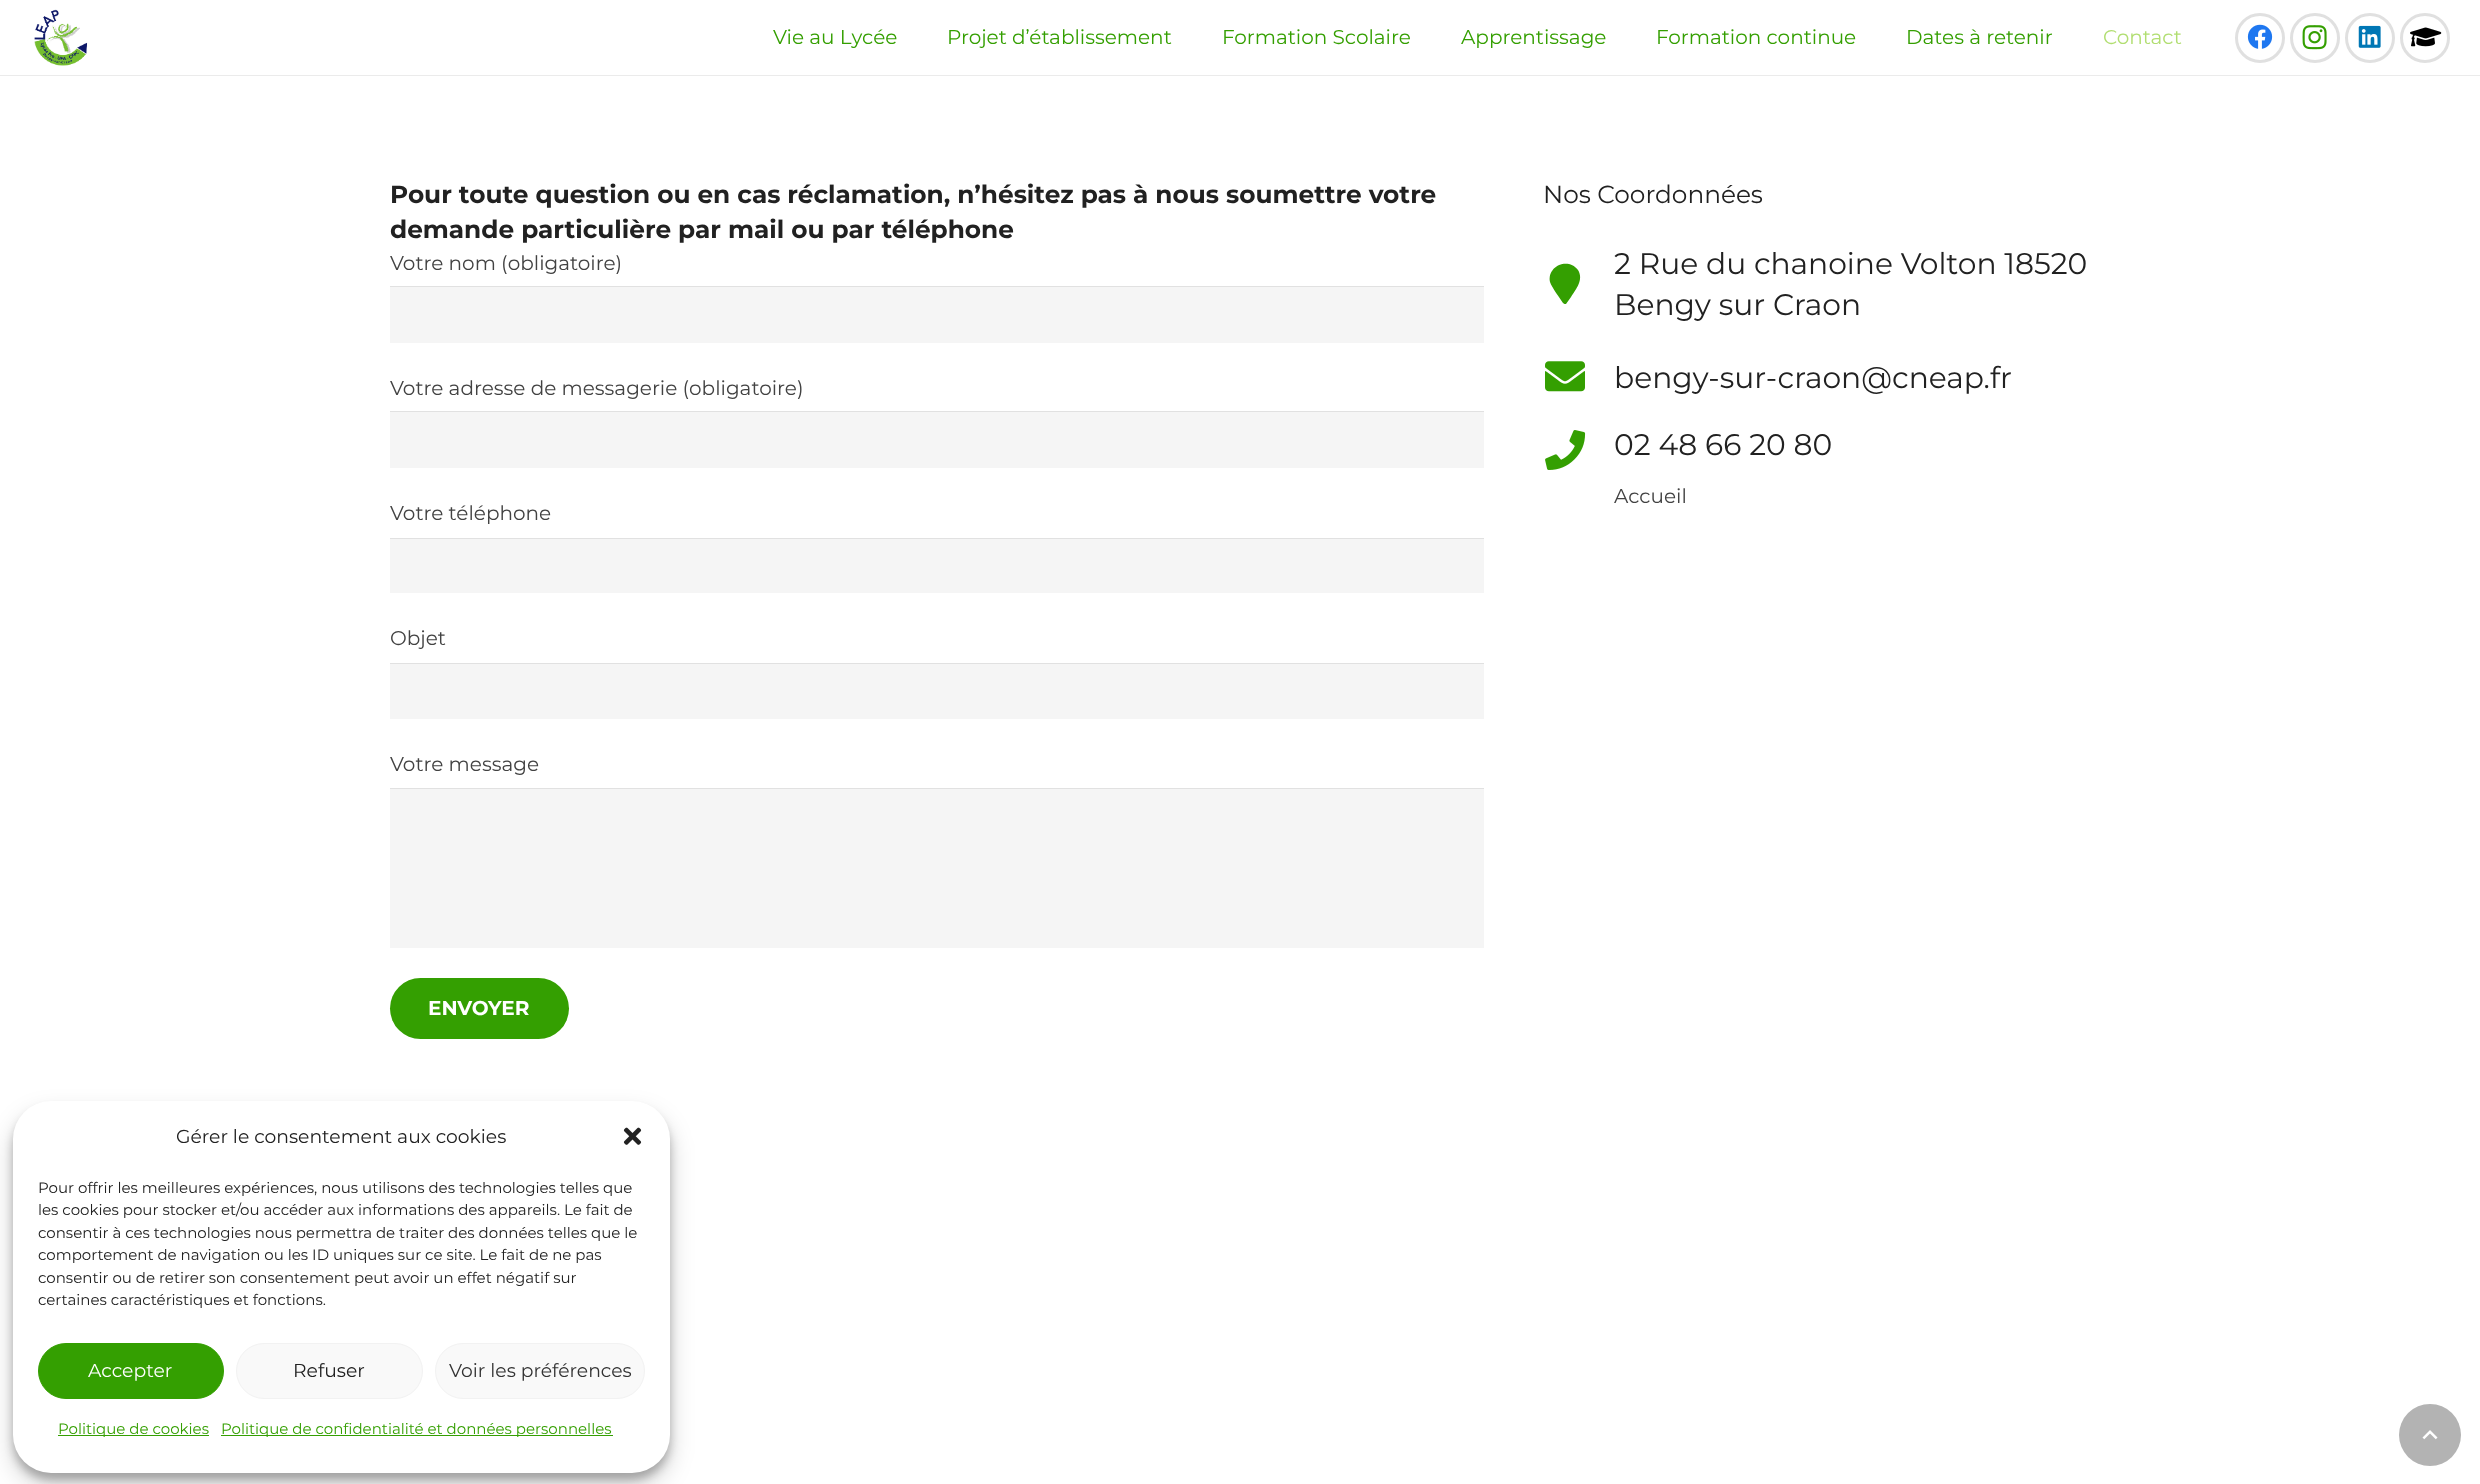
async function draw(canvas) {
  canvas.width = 2480
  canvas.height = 1484
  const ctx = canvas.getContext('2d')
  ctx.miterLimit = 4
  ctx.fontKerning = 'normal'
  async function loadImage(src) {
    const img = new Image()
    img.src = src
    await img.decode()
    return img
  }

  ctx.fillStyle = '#fff'
  ctx.fillRect(0, 0, 2480, 1484)
  ctx.fillStyle = '#ebebeb'
  ctx.fillRect(0, 75, 2480, 1)
  ctx.drawImage(await loadImage('image0.png'), 34, 9, 54, 57)
  ctx.font = '20px Montserrat'
  ctx.fillStyle = '#349f01'
  ctx.fillText('Vie au Lycée', 773, 44)
  ctx.fillText('Projet d’établissement', 947, 44)
  ctx.fillText('Formation Scolaire', 1222, 44)
  ctx.fillText('Apprentissage', 1461, 44)
  ctx.fillText('Formation continue', 1656, 44)
  ctx.fillText('Dates à retenir', 1906, 44)
  ctx.fillStyle = '#b1de71'
  ctx.fillText('Contact', 2103, 44)
  ctx.beginPath()
  ctx.arc(2260, 38, 23.5, 0, 2 * Math.PI)
  ctx.strokeStyle = '#e0e0e0'
  ctx.lineWidth = 3
  ctx.stroke()
  ctx.drawImage(await loadImage('image1.png'), 2247, 24, 26, 25)
  ctx.beginPath()
  ctx.arc(2315, 38, 23.5, 0, 2 * Math.PI)
  ctx.stroke()
  ctx.drawImage(await loadImage('image2.png'), 2302, 25, 25, 25)
  ctx.beginPath()
  ctx.arc(2370, 38, 23.5, 0, 2 * Math.PI)
  ctx.stroke()
  ctx.drawImage(await loadImage('image3.png'), 2358, 25, 23, 23)
  ctx.beginPath()
  ctx.arc(2425, 38, 23.5, 0, 2 * Math.PI)
  ctx.stroke()
  ctx.drawImage(await loadImage('image4.png'), 2410, 27, 32, 20)
  ctx.font = 'bold 24.8px Montserrat'
  ctx.fillStyle = '#212121'
  ctx.fillText('Pour toute question ou en cas réclamation, n’hésitez pas à nous soumettre votre', 390, 203)
  ctx.fillText('demande particulière par mail ou par téléphone', 390, 238)
  ctx.font = '20px Montserrat'
  ctx.fillStyle = '#424242'
  ctx.fillText('Votre nom (obligatoire)', 390, 270)
  ctx.fillStyle = '#f5f5f5'
  ctx.fillRect(390, 287, 1094, 56)
  ctx.fillStyle = '#e1e1e1'
  ctx.fillRect(390, 286, 1094, 1)
  ctx.fillStyle = '#424242'
  ctx.fillText('Votre adresse de messagerie (obligatoire)', 390, 395)
  ctx.fillStyle = '#f5f5f5'
  ctx.fillRect(390, 412, 1094, 56)
  ctx.fillStyle = '#e1e1e1'
  ctx.fillRect(390, 411, 1094, 1)
  ctx.fillStyle = '#424242'
  ctx.fillText('Votre téléphone', 390, 520)
  ctx.fillStyle = '#f5f5f5'
  ctx.fillRect(390, 539, 1094, 54)
  ctx.fillStyle = '#e1e1e1'
  ctx.fillRect(390, 538, 1094, 1)
  ctx.fillStyle = '#424242'
  ctx.fillText('Objet', 390, 645)
  ctx.fillStyle = '#f5f5f5'
  ctx.fillRect(390, 664, 1094, 55)
  ctx.fillStyle = '#e1e1e1'
  ctx.fillRect(390, 663, 1094, 1)
  ctx.fillStyle = '#424242'
  ctx.fillText('Votre message', 390, 771)
  ctx.fillStyle = '#f5f5f5'
  ctx.fillRect(390, 789, 1094, 159)
  ctx.fillStyle = '#e1e1e1'
  ctx.fillRect(390, 788, 1094, 1)
  ctx.fillStyle = '#349f01'
  ctx.beginPath()
  ctx.roundRect(390, 978, 179, 61, 30.5)
  ctx.fill()
  ctx.font = 'bold 20px Montserrat'
  ctx.fillStyle = '#fff'
  ctx.fillText('ENVOYER', 428, 1015)
  ctx.font = '24.8px Montserrat'
  ctx.fillStyle = '#212121'
  ctx.fillText('Nos Coordonnées', 1543, 203)
  ctx.fillStyle = '#349f01'
  ctx.beginPath()
  ctx.moveTo(1563, 303)
  ctx.bezierCurveTo(1560, 298, 1552, 288, 1550, 282)
  ctx.bezierCurveTo(1547, 266, 1568, 257, 1578, 270)
  ctx.bezierCurveTo(1584, 280, 1576, 289, 1571, 297)
  ctx.lineTo(1566, 304)
  ctx.bezierCurveTo(1565, 304, 1564, 304, 1563, 303)
  ctx.closePath()
  ctx.fill()
  ctx.font = '29.75px Montserrat'
  ctx.fillStyle = '#212121'
  ctx.fillText('2 Rue du chanoine Volton 18520', 1614, 274)
  ctx.fillText('Bengy sur Craon', 1614, 315)
  ctx.drawImage(await loadImage('image5.png'), 1545, 361, 40, 31)
  ctx.fillText('bengy-sur-craon@cneap.fr', 1614, 388)
  ctx.drawImage(await loadImage('image6.png'), 1545, 430, 41, 40)
  ctx.fillText('02 48 66 20 80', 1614, 455)
  ctx.font = '20px Montserrat'
  ctx.fillStyle = '#424242'
  ctx.fillText('Accueil', 1614, 503)
  ctx.fillStyle = '#0000003b'
  ctx.filter = 'blur(4px)'
  ctx.beginPath()
  ctx.roundRect(13, 1109, 657, 371, 38)
  ctx.fill()
  ctx.filter = 'none'
  ctx.fillStyle = '#00000030'
  ctx.filter = 'blur(12.5px)'
  ctx.beginPath()
  ctx.roundRect(13, 1114, 657, 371, 38)
  ctx.fill()
  ctx.filter = 'none'
  ctx.fillStyle = '#fff'
  ctx.beginPath()
  ctx.roundRect(13, 1101, 657, 372, 38)
  ctx.fill()
  ctx.font = '18.75px Montserrat'
  ctx.fillStyle = '#212121'
  ctx.fillText('Gérer le consentement aux cookies', 176, 1143)
  ctx.drawImage(await loadImage('image7.png'), 623, 1127, 19, 18)
  ctx.font = '15px Montserrat'
  ctx.fillText('Pour offrir les meilleures expériences, nous utilisons des technologies telles que', 38, 1193)
  ctx.fillText('les cookies pour stocker et/ou accéder aux informations des appareils. Le fait de', 38, 1215)
  ctx.fillText('consentir à ces technologies nous permettra de traiter des données telles que le', 38, 1238)
  ctx.fillText('comportement de navigation ou les ID uniques sur ce site. Le fait de ne pas', 38, 1260)
  ctx.fillText('consentir ou de retirer son consentement peut avoir un effet négatif sur', 38, 1283)
  ctx.fillText('certaines caractéristiques et fonctions.', 38, 1305)
  ctx.fillStyle = '#349f01'
  ctx.beginPath()
  ctx.roundRect(38.5, 1343.5, 185, 55, 27.5)
  ctx.fill()
  ctx.strokeStyle = '#349f01'
  ctx.lineWidth = 1
  ctx.stroke()
  ctx.font = '18.75px Montserrat'
  ctx.fillStyle = '#fff'
  ctx.fillText('Accepter', 88, 1377)
  ctx.fillStyle = '#f9f9f9'
  ctx.beginPath()
  ctx.roundRect(236.5, 1343.5, 186, 55, 27.5)
  ctx.fill()
  ctx.strokeStyle = '#f2f2f2'
  ctx.stroke()
  ctx.fillStyle = '#212121'
  ctx.fillText('Refuser', 293, 1377)
  ctx.fillStyle = '#f9f9f9'
  ctx.beginPath()
  ctx.roundRect(435.5, 1343.5, 209, 55, 27.5)
  ctx.fill()
  ctx.stroke()
  ctx.fillStyle = '#333'
  ctx.fillText('Voir les préférences', 449, 1377)
  ctx.fillStyle = '#349f01'
  ctx.fillRect(58, 1435, 151, 1)
  ctx.font = '15px Montserrat'
  ctx.fillText('Politique de cookies', 58, 1434)
  ctx.fillRect(221, 1435, 392, 1)
  ctx.fillText('Politique de confidentialité et données personnelles', 221, 1434)
  ctx.fillStyle = '#b3b3b3'
  ctx.beginPath()
  ctx.arc(2430, 1435, 31, 0, 2 * Math.PI)
  ctx.fill()
  ctx.drawImage(await loadImage('image8.png'), 2422, 1430, 16, 10)
}

draw(document.querySelector('canvas'))
